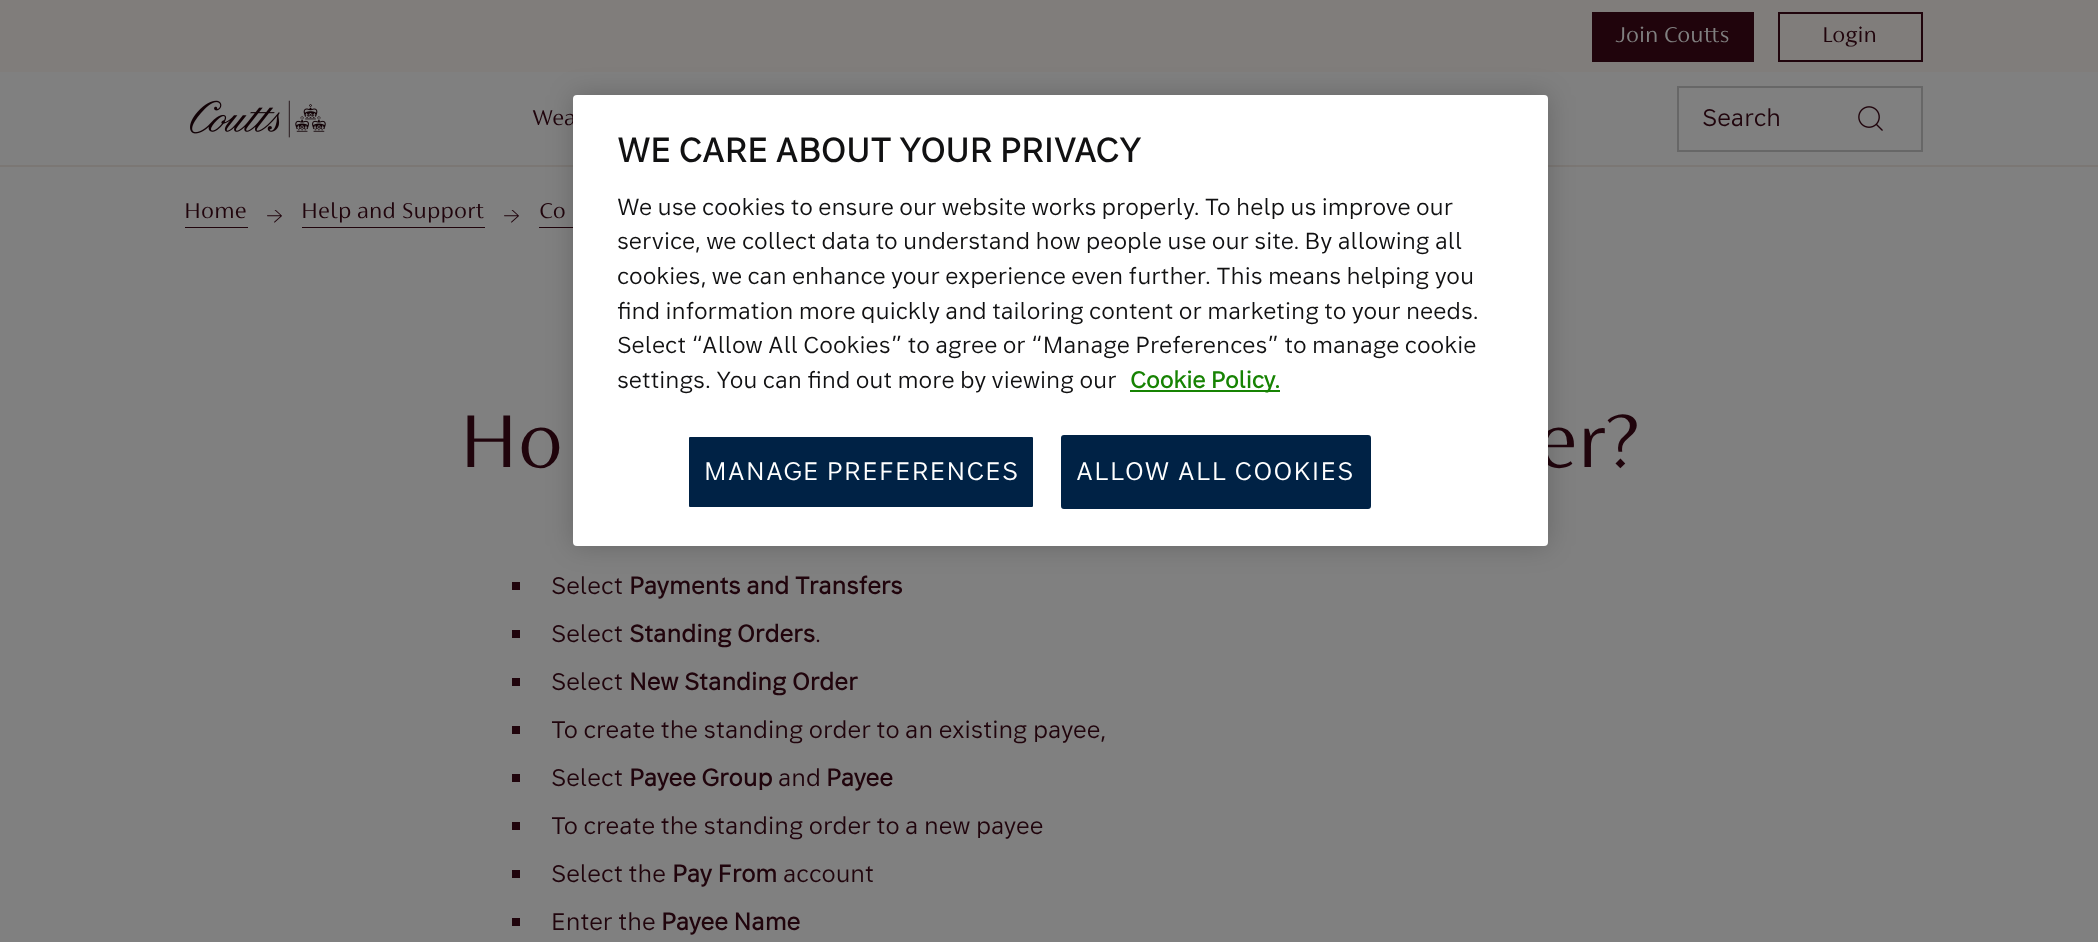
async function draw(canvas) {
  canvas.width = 2098
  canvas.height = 942
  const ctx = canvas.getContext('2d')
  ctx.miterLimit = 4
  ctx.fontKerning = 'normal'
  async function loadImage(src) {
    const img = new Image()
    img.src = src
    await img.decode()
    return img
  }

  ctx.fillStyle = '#808080'
  ctx.fillRect(0, 0, 2098, 942)
  ctx.fillStyle = '#807d7b'
  ctx.fillRect(0, 0, 2098, 72)
  ctx.fillStyle = '#20040c'
  ctx.fillRect(1592, 12, 162, 50)
  ctx.font = '300 24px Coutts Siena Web'
  ctx.fillStyle = '#808080'
  ctx.fillText('Join Coutts', 1615, 42)
  ctx.strokeStyle = '#20040c'
  ctx.lineWidth = 2
  ctx.strokeRect(1779, 13, 143, 48)
  ctx.fillStyle = '#20040c'
  ctx.fillText('Login', 1822, 42)
  ctx.fillStyle = '#7b7774'
  ctx.fillRect(0, 165, 2098, 2)
  ctx.drawImage(await loadImage('image0.png'), 190, 100, 136, 38)
  ctx.fillStyle = '#20040c'
  ctx.fillText('Wea', 532, 125)
  ctx.strokeStyle = '#676767'
  ctx.strokeRect(1678, 87, 244, 64)
  ctx.font = '24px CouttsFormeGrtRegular'
  ctx.fillText('Search', 1702, 126)
  ctx.drawImage(await loadImage('image1.png'), 1858, 106, 25, 25)
  ctx.fillRect(185, 227, 63, 1)
  ctx.letterSpacing = '0.25px'
  ctx.font = '300 24px Coutts Siena Web'
  ctx.fillText('Home', 184, 218)
  ctx.drawImage(await loadImage('image2.png'), 267, 210, 15, 13)
  ctx.fillRect(302, 227, 183, 1)
  ctx.fillText('Help and Support', 301, 218)
  ctx.drawImage(await loadImage('image3.png'), 504, 210, 15, 13)
  ctx.fillRect(539, 227, 34, 1)
  ctx.fillText('Co', 539, 218)
  ctx.letterSpacing = '0px'
  ctx.font = '300 84px Coutts Siena Web'
  ctx.fillText('Ho', 459, 467)
  ctx.fillText('er?', 1536, 467)
  ctx.fillRect(512, 582, 8, 8)
  ctx.font = '24px CouttsFormeGrtRegular'
  ctx.fillText('Select', 551, 594)
  ctx.font = 'bold 24px CouttsFormeGrtRegular'
  ctx.fillText('Payments and Transfers', 629, 594)
  ctx.fillRect(512, 630, 8, 8)
  ctx.font = '24px CouttsFormeGrtRegular'
  ctx.fillText('Select', 551, 642)
  ctx.font = 'bold 24px CouttsFormeGrtRegular'
  ctx.fillText('Standing Orders', 629, 642)
  ctx.font = '24px CouttsFormeGrtRegular'
  ctx.fillText('.', 815, 642)
  ctx.fillRect(512, 678, 8, 8)
  ctx.fillText('Select', 551, 690)
  ctx.font = 'bold 24px CouttsFormeGrtRegular'
  ctx.fillText('New Standing Order', 629, 690)
  ctx.fillRect(512, 726, 8, 8)
  ctx.font = '24px CouttsFormeGrtRegular'
  ctx.fillText('To create the standing order to an existing payee,', 551, 738)
  ctx.fillRect(512, 774, 8, 8)
  ctx.fillText('Select', 551, 786)
  ctx.font = 'bold 24px CouttsFormeGrtRegular'
  ctx.fillText('Payee Group', 629, 786)
  ctx.font = '24px CouttsFormeGrtRegular'
  ctx.fillText('and', 778, 786)
  ctx.font = 'bold 24px CouttsFormeGrtRegular'
  ctx.fillText('Payee', 826, 786)
  ctx.fillRect(512, 822, 8, 8)
  ctx.font = '24px CouttsFormeGrtRegular'
  ctx.fillText('To create the standing order to a new payee', 551, 834)
  ctx.fillRect(512, 870, 8, 8)
  ctx.fillText('Select the', 551, 882)
  ctx.font = 'bold 24px CouttsFormeGrtRegular'
  ctx.fillText('Pay From', 672, 882)
  ctx.font = '24px CouttsFormeGrtRegular'
  ctx.fillText('account', 783, 882)
  ctx.fillRect(512, 918, 8, 8)
  ctx.fillText('Enter the', 551, 930)
  ctx.font = 'bold 24px CouttsFormeGrtRegular'
  ctx.fillText('Payee Name', 661, 930)
  ctx.fillStyle = '#00000033'
  ctx.filter = 'blur(13.5px)'
  ctx.beginPath()
  ctx.roundRect(573, 95, 975, 451, 4)
  ctx.fill()
  ctx.filter = 'none'
  ctx.fillStyle = '#fff'
  ctx.beginPath()
  ctx.roundRect(573, 95, 975, 451, 4)
  ctx.fill()
  ctx.font = 'bold 33.6px CouttsFormeGrtRegular'
  ctx.fillStyle = '#111112'
  ctx.fillText('WE CARE ABOUT YOUR PRIVACY', 617, 162)
  ctx.font = '23.1px CouttsFormeGrtRegular'
  ctx.fillText('We use cookies to ensure our website works properly. To help us improve our', 617, 215)
  ctx.fillText('service, we collect data to understand how people use our site. By allowing all', 617, 249)
  ctx.fillText('cookies, we can enhance your experience even further. This means helping you', 617, 284)
  ctx.fillText('find information more quickly and tailoring content or marketing to your needs.', 617, 319)
  ctx.fillText('Select “Allow All Cookies” to agree or “Manage Preferences” to manage cookie', 617, 353)
  ctx.fillText('settings. You can find out more by viewing our', 617, 388)
  ctx.fillStyle = '#178303'
  ctx.fillRect(1130, 390, 150, 2)
  ctx.font = 'bold 23.1px CouttsFormeGrtRegular'
  ctx.fillText('Cookie Policy.', 1130, 388)
  ctx.fillStyle = '#002245'
  ctx.beginPath()
  ctx.roundRect(688, 436, 346, 72, 2)
  ctx.fill()
  ctx.strokeStyle = '#fff'
  ctx.stroke()
  ctx.letterSpacing = '1.25px'
  ctx.font = '25.25px CouttsFormeGrtRegular'
  ctx.fillStyle = '#fff'
  ctx.fillText('MANAGE PREFERENCES', 704, 480)
  ctx.fillStyle = '#002245'
  ctx.beginPath()
  ctx.roundRect(1062, 436, 308, 72, 2)
  ctx.fill()
  ctx.strokeStyle = '#002245'
  ctx.stroke()
  ctx.fillStyle = '#fff'
  ctx.fillText('ALLOW ALL COOKIES', 1076, 480)
}

draw(document.querySelector('canvas'))
